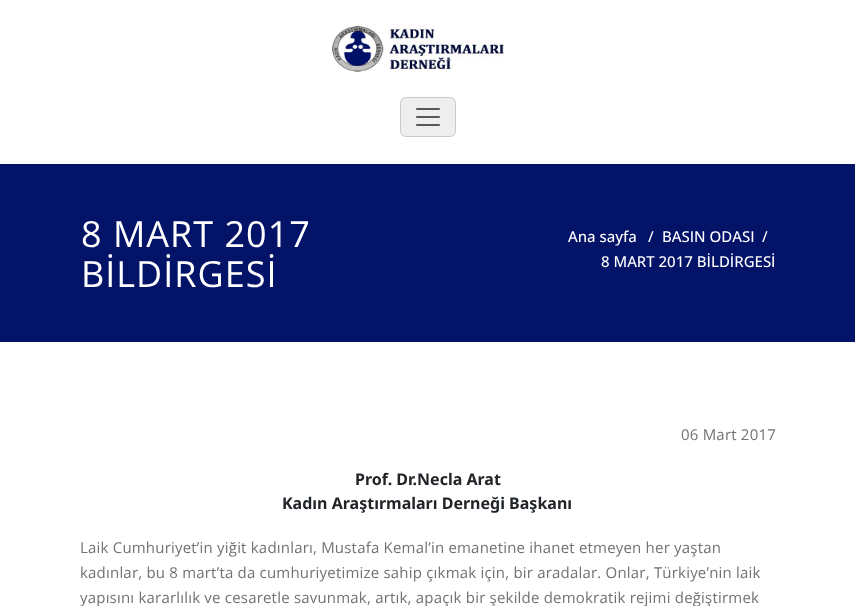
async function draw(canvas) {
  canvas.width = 855
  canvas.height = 606
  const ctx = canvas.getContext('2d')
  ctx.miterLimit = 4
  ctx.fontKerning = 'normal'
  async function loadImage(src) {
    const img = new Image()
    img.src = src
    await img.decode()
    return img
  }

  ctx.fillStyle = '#fff'
  ctx.fillRect(0, 0, 855, 606)
  ctx.drawImage(await loadImage('image0.png'), 332, 24, 172, 50)
  ctx.fillStyle = '#eee'
  ctx.beginPath()
  ctx.roundRect(400, 97, 56, 40, 6)
  ctx.fill()
  ctx.beginPath()
  ctx.roundRect(400.5, 97.5, 55, 39, 5.5)
  ctx.strokeStyle = '#00000026'
  ctx.stroke()
  ctx.drawImage(await loadImage('image1.png'), 416, 108, 24, 18)
  ctx.fillStyle = '#031368'
  ctx.fillRect(0, 164, 855, 178)
  ctx.letterSpacing = '1px'
  ctx.font = '36px Open Sans'
  ctx.fillStyle = '#fff'
  ctx.fillText('8 MART 2017', 81, 247)
  ctx.fillText('BİLDİRGESİ', 81, 287)
  ctx.letterSpacing = '0px'
  ctx.font = '500 15px Open Sans'
  ctx.fillText('Ana sayfa', 568, 242)
  ctx.fillText('/', 648, 242)
  ctx.fillText('BASIN ODASI', 662, 242)
  ctx.fillText('/', 762, 242)
  ctx.fillText('8 MART 2017 BİLDİRGESİ', 601, 267)
  ctx.letterSpacing = '0.2px'
  ctx.font = '15px Open Sans'
  ctx.fillStyle = '#727272'
  ctx.fillText('06 Mart 2017', 681, 440)
  ctx.letterSpacing = '0px'
  ctx.font = 'bold 16px Noto Sans'
  ctx.fillStyle = '#212529'
  ctx.fillText('Prof. Dr.Necla Arat', 355, 485)
  ctx.fillText('Kadın Araştırmaları Derneği Başkanı', 282, 509)
  ctx.letterSpacing = '0.2px'
  ctx.font = '15px Open Sans'
  ctx.fillStyle = '#727272'
  ctx.fillText('Laik Cumhuriyet’in yiğit kadınları, Mustafa Kemal’in emanetine ihanet etmeyen her yaştan', 80, 553)
  ctx.fillText('kadınlar, bu 8 mart’ta da cumhuriyetimize sahip çıkmak için, bir aradalar. Onlar, Türkiye’nin laik', 80, 578)
  ctx.fillText('yapısını kararlılık ve cesaretle savunmak, artık, apaçık bir şekilde demokratik rejimi değiştirmek', 80, 603)
}

draw(document.querySelector('canvas'))
